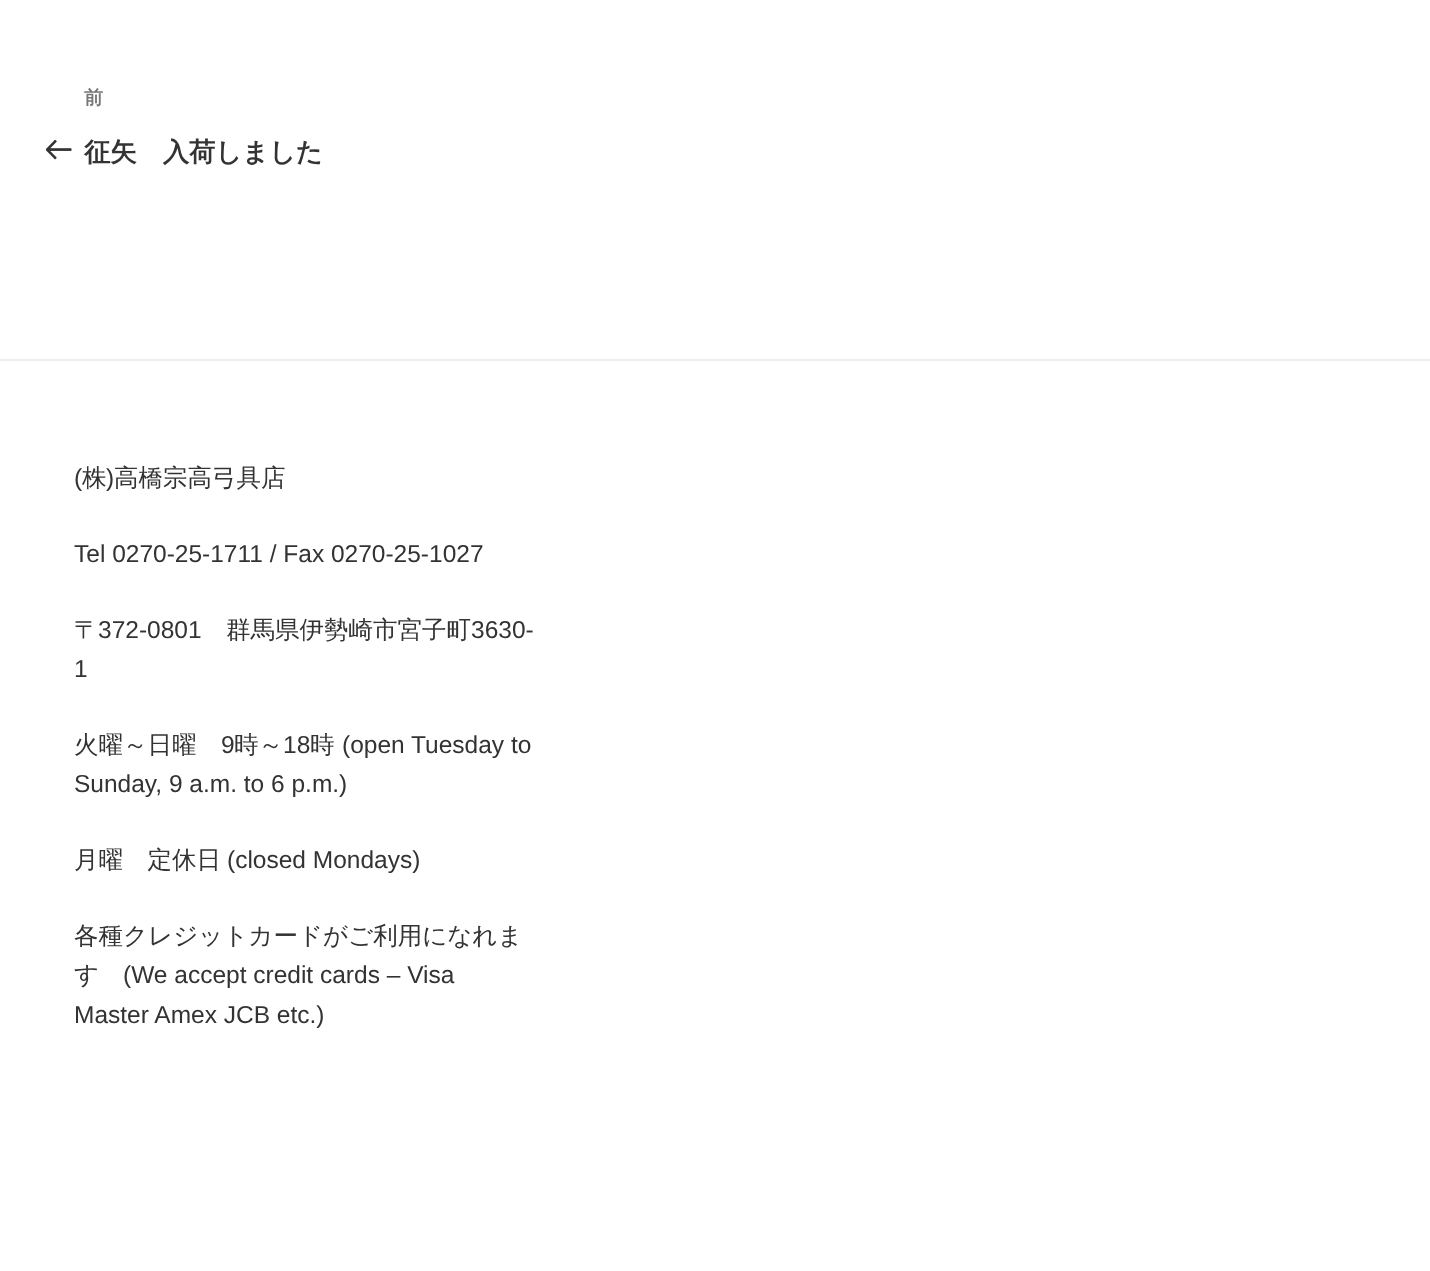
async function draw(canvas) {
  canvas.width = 1430
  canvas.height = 1271
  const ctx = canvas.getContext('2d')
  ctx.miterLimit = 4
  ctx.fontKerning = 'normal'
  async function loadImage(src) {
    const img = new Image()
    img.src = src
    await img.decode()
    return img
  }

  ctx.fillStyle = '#fff'
  ctx.fillRect(0, 0, 1430, 1271)
  ctx.font = 'bold 19px WenQuanYi Zen Hei'
  ctx.fillStyle = '#767676'
  ctx.fillText('前', 84, 104)
  ctx.drawImage(await loadImage('image0.png'), 46, 139, 26, 21)
  ctx.font = 'bold 26.25px WenQuanYi Zen Hei'
  ctx.fillStyle = '#333'
  ctx.fillText('征矢　入荷しました', 84, 161)
  ctx.fillStyle = '#eee'
  ctx.fillRect(0, 359, 1430, 2)
  ctx.font = '24.5px Liberation Sans'
  ctx.fillStyle = '#333'
  ctx.fillText('(', 74, 486)
  ctx.font = '500 24.5px WenQuanYi Zen Hei'
  ctx.fillText('株', 82, 486)
  ctx.font = '24.5px Liberation Sans'
  ctx.fillText(')', 106, 486)
  ctx.font = '500 24.5px WenQuanYi Zen Hei'
  ctx.fillText('高橋宗高弓具店', 114, 486)
  ctx.font = '24.5px Liberation Sans'
  ctx.fillText('Tel 0270-25-1711 / Fax 0270-25-1027', 74, 562)
  ctx.font = '500 24.5px WenQuanYi Zen Hei'
  ctx.fillText('〒', 74, 638)
  ctx.font = '24.5px Liberation Sans'
  ctx.fillText('372-0801', 98, 638)
  ctx.font = '500 24.5px WenQuanYi Zen Hei'
  ctx.fillText('群馬県伊勢崎市宮子町', 226, 638)
  ctx.font = '24.5px Liberation Sans'
  ctx.fillText('3630-', 471, 638)
  ctx.fillText('1', 74, 677)
  ctx.font = '500 24.5px WenQuanYi Zen Hei'
  ctx.fillText('火曜～日曜', 74, 753)
  ctx.font = '24.5px Liberation Sans'
  ctx.fillText('9', 221, 753)
  ctx.font = '500 24.5px WenQuanYi Zen Hei'
  ctx.fillText('時～', 234, 753)
  ctx.font = '24.5px Liberation Sans'
  ctx.fillText('18', 283, 753)
  ctx.font = '500 24.5px WenQuanYi Zen Hei'
  ctx.fillText('時', 310, 753)
  ctx.font = '24.5px Liberation Sans'
  ctx.fillText('(open Tuesday to', 342, 753)
  ctx.fillText('Sunday, 9 a.m. to 6 p.m.)', 74, 792)
  ctx.font = '500 24.5px WenQuanYi Zen Hei'
  ctx.fillText('月曜　定休日', 74, 868)
  ctx.font = '24.5px Liberation Sans'
  ctx.fillText('(closed Mondays)', 227, 868)
  ctx.font = '500 24.5px WenQuanYi Zen Hei'
  ctx.fillText('各種クレジットカードがご利用になれま', 74, 944)
  ctx.fillText('す', 74, 983)
  ctx.font = '24.5px Liberation Sans'
  ctx.fillText('(We accept credit cards – Visa', 123, 983)
  ctx.fillText('Master Amex JCB etc.)', 74, 1023)
}

draw(document.querySelector('canvas'))
